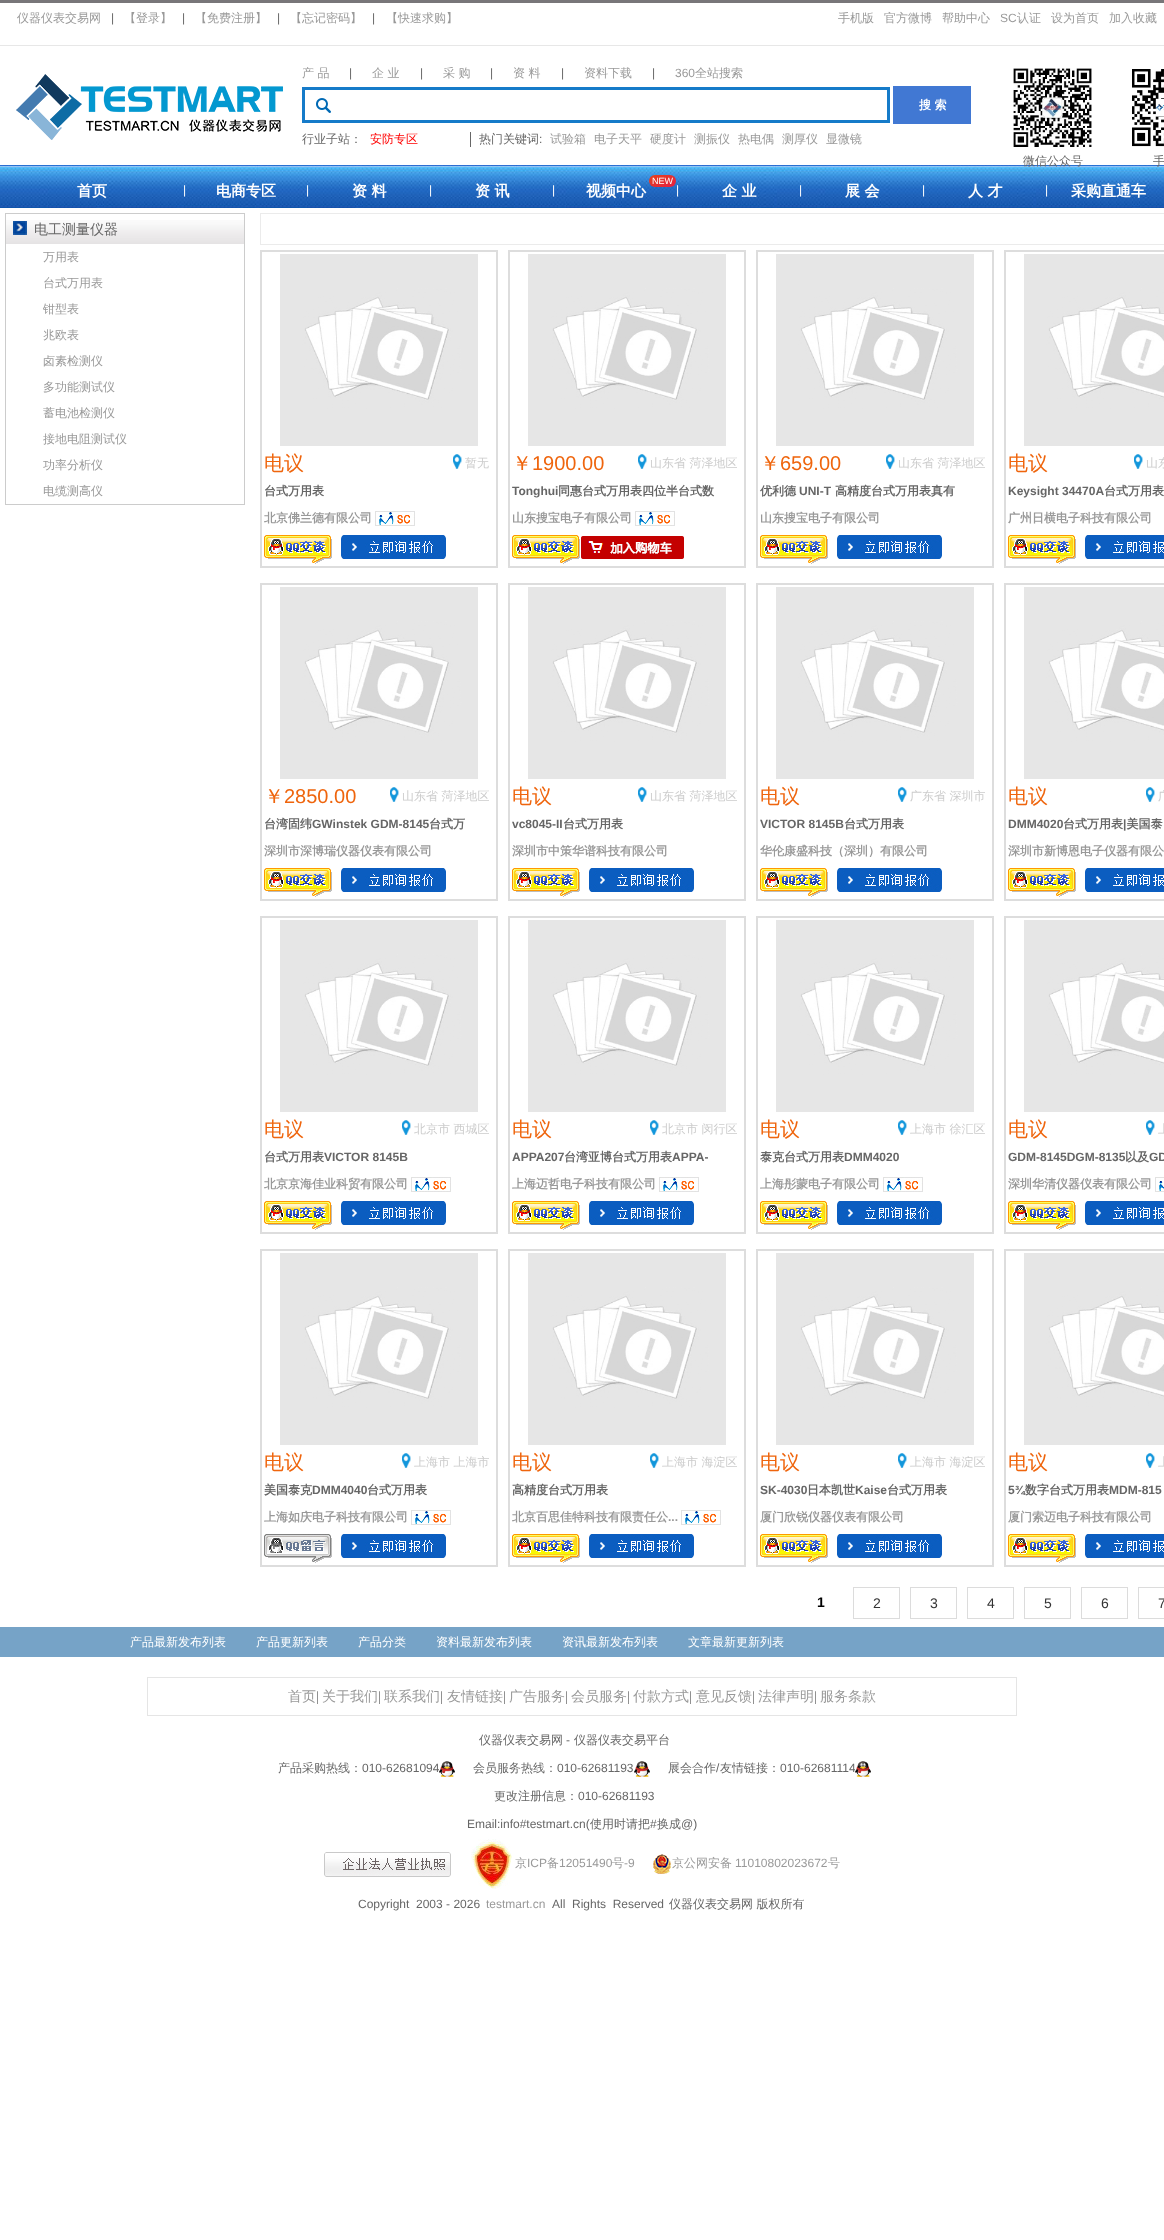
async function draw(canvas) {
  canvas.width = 1164
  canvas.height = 2240
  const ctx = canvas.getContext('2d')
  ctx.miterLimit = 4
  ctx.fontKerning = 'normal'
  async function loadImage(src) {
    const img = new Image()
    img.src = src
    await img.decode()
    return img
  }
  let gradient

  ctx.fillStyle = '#fff'
  ctx.fillRect(0, 0, 1164, 2240)
  ctx.fillStyle = '#787679'
  ctx.fillRect(0, 0, 1164, 3)
  ctx.fillStyle = '#e7e7e7'
  ctx.fillRect(0, 45, 1164, 1)
  ctx.font = '500 12px WenQuanYi Zen Hei'
  ctx.fillStyle = '#999'
  ctx.fillText('仪器仪表交易网', 17, 22)
  ctx.font = '12px Liberation Sans'
  ctx.fillStyle = '#666'
  ctx.fillText('|', 111, 22)
  ctx.font = '500 12px WenQuanYi Zen Hei'
  ctx.fillStyle = '#999'
  ctx.fillText('【登录】', 124, 22)
  ctx.font = '12px Liberation Sans'
  ctx.fillStyle = '#666'
  ctx.fillText('|', 182, 22)
  ctx.font = '500 12px WenQuanYi Zen Hei'
  ctx.fillStyle = '#999'
  ctx.fillText('【免费注册】', 195, 22)
  ctx.font = '12px Liberation Sans'
  ctx.fillStyle = '#666'
  ctx.fillText('|', 277, 22)
  ctx.font = '500 12px WenQuanYi Zen Hei'
  ctx.fillStyle = '#999'
  ctx.fillText('【忘记密码】', 290, 22)
  ctx.font = '12px Liberation Sans'
  ctx.fillStyle = '#666'
  ctx.fillText('|', 372, 22)
  ctx.font = '500 12px WenQuanYi Zen Hei'
  ctx.fillStyle = '#999'
  ctx.fillText('【快速求购】', 386, 22)
  ctx.fillText('手机版', 838, 22)
  ctx.fillText('官方微博', 884, 22)
  ctx.fillText('帮助中心', 942, 22)
  ctx.font = '12px Liberation Sans'
  ctx.fillText('SC', 1000, 22)
  ctx.font = '500 12px WenQuanYi Zen Hei'
  ctx.fillText('认证', 1017, 22)
  ctx.fillText('设为首页', 1051, 22)
  ctx.fillText('加入收藏', 1109, 22)
  ctx.drawImage(await loadImage('image0.png'), 16, 74, 267, 66)
  ctx.fillText('产 品', 302, 77)
  ctx.font = '12px Liberation Sans'
  ctx.fillStyle = '#666'
  ctx.fillText('|', 349, 77)
  ctx.font = '500 12px WenQuanYi Zen Hei'
  ctx.fillStyle = '#999'
  ctx.fillText('企 业', 372, 77)
  ctx.font = '12px Liberation Sans'
  ctx.fillStyle = '#666'
  ctx.fillText('|', 420, 77)
  ctx.font = '500 12px WenQuanYi Zen Hei'
  ctx.fillStyle = '#999'
  ctx.fillText('采 购', 443, 77)
  ctx.font = '12px Liberation Sans'
  ctx.fillStyle = '#666'
  ctx.fillText('|', 490, 77)
  ctx.font = '500 12px WenQuanYi Zen Hei'
  ctx.fillStyle = '#999'
  ctx.fillText('资 料', 513, 77)
  ctx.font = '12px Liberation Sans'
  ctx.fillStyle = '#666'
  ctx.fillText('|', 561, 77)
  ctx.font = '500 12px WenQuanYi Zen Hei'
  ctx.fillStyle = '#999'
  ctx.fillText('资料下载', 584, 77)
  ctx.font = '12px Liberation Sans'
  ctx.fillStyle = '#666'
  ctx.fillText('|', 652, 77)
  ctx.fillStyle = '#999'
  ctx.fillText('360', 675, 77)
  ctx.font = '500 12px WenQuanYi Zen Hei'
  ctx.fillText('全站搜索', 695, 77)
  ctx.strokeStyle = '#167bc9'
  ctx.lineWidth = 3
  ctx.strokeRect(303.5, 88.5, 585, 33)
  ctx.drawImage(await loadImage('image1.png'), 316, 98, 15, 15)
  ctx.fillStyle = '#4178d3'
  ctx.fillRect(893, 86, 78, 38)
  ctx.font = 'bold 12px WenQuanYi Zen Hei'
  ctx.fillStyle = '#fff'
  ctx.fillText('搜 索', 919, 109)
  ctx.font = '500 12px WenQuanYi Zen Hei'
  ctx.fillStyle = '#666'
  ctx.fillText('行业子站：', 302, 143)
  ctx.fillRect(470, 132, 1, 15)
  ctx.fillStyle = '#f00'
  ctx.fillText('安防专区', 370, 143)
  ctx.fillStyle = '#666'
  ctx.fillText('热门关键词', 479, 143)
  ctx.font = '12px Liberation Sans'
  ctx.fillText(':', 539, 143)
  ctx.font = '500 12px WenQuanYi Zen Hei'
  ctx.fillStyle = '#999'
  ctx.fillText('试验箱', 550, 143)
  ctx.fillText('电子天平', 594, 143)
  ctx.fillText('硬度计', 650, 143)
  ctx.fillText('测振仪', 694, 143)
  ctx.fillText('热电偶', 738, 143)
  ctx.fillText('测厚仪', 782, 143)
  ctx.fillText('显微镜', 826, 143)
  ctx.drawImage(await loadImage('image2.png'), 1013, 68, 79, 79)
  ctx.drawImage(await loadImage('image4.png'), 0, 165, 1164, 43)
  ctx.fillStyle = '#666'
  ctx.fillText('微信公众号', 1023, 165)
  ctx.drawImage(await loadImage('image3.png'), 1132, 69, 32, 78)
  ctx.fillText('手', 1153, 165)
  ctx.font = 'bold 15px WenQuanYi Zen Hei'
  ctx.fillStyle = '#fff'
  ctx.fillText('首页', 77, 196)
  ctx.font = '12px Liberation Sans'
  ctx.fillText('|', 183, 194)
  ctx.font = 'bold 15px WenQuanYi Zen Hei'
  ctx.fillText('电商专区', 216, 196)
  ctx.font = '12px Liberation Sans'
  ctx.fillText('|', 306, 194)
  ctx.font = 'bold 15px WenQuanYi Zen Hei'
  ctx.fillText('资 料', 352, 196)
  ctx.font = '12px Liberation Sans'
  ctx.fillText('|', 429, 194)
  ctx.font = 'bold 15px WenQuanYi Zen Hei'
  ctx.fillText('资 讯', 475, 196)
  ctx.font = '12px Liberation Sans'
  ctx.fillText('|', 552, 194)
  gradient = ctx.createLinearGradient(658, 171, 667, 191)
  gradient.addColorStop(0, '#e4421b')
  gradient.addColorStop(1, '#e51e43')
  ctx.fillStyle = gradient
  ctx.beginPath()
  ctx.roundRect(649, 175, 27, 12, 6)
  ctx.fill()
  ctx.font = '9px Liberation Sans'
  ctx.fillStyle = '#fff'
  ctx.fillText('NEW', 652, 184)
  ctx.font = 'bold 15px WenQuanYi Zen Hei'
  ctx.fillText('视频中心', 586, 196)
  ctx.font = '12px Liberation Sans'
  ctx.fillText('|', 676, 194)
  ctx.font = 'bold 15px WenQuanYi Zen Hei'
  ctx.fillText('企 业', 722, 196)
  ctx.font = '12px Liberation Sans'
  ctx.fillText('|', 799, 194)
  ctx.font = 'bold 15px WenQuanYi Zen Hei'
  ctx.fillText('展 会', 845, 196)
  ctx.font = '12px Liberation Sans'
  ctx.fillText('|', 922, 194)
  ctx.font = 'bold 15px WenQuanYi Zen Hei'
  ctx.fillText('人 才', 968, 196)
  ctx.font = '12px Liberation Sans'
  ctx.fillText('|', 1045, 194)
  ctx.font = 'bold 15px WenQuanYi Zen Hei'
  ctx.fillText('采购直通车', 1071, 196)
  ctx.strokeStyle = '#ccc'
  ctx.lineWidth = 1
  ctx.strokeRect(5.5, 213.5, 239, 291)
  ctx.drawImage(await loadImage('image5.png'), 6, 220, 238, 24)
  ctx.drawImage(await loadImage('image6.png'), 13, 221, 14, 14)
  ctx.font = '500 14px WenQuanYi Zen Hei'
  ctx.fillStyle = '#666'
  ctx.fillText('电工测量仪器', 34, 234)
  ctx.font = '500 12px WenQuanYi Zen Hei'
  ctx.fillStyle = '#999'
  ctx.fillText('万用表', 43, 261)
  ctx.fillText('台式万用表', 43, 287)
  ctx.fillText('钳型表', 43, 313)
  ctx.fillText('兆欧表', 43, 339)
  ctx.fillText('卤素检测仪', 43, 365)
  ctx.fillText('多功能测试仪', 43, 391)
  ctx.fillText('蓄电池检测仪', 43, 417)
  ctx.fillText('接地电阻测试仪', 43, 443)
  ctx.fillText('功率分析仪', 43, 469)
  ctx.fillText('电缆测高仪', 43, 495)
  ctx.strokeStyle = '#ebebeb'
  ctx.strokeRect(260.5, 213.5, 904, 31)
  ctx.strokeStyle = '#ddd'
  ctx.lineWidth = 2
  ctx.strokeRect(261, 251, 236, 316)
  ctx.drawImage(await loadImage('image7.png'), 280, 254, 198, 192)
  ctx.font = '500 20px WenQuanYi Zen Hei'
  ctx.fillStyle = '#ef650d'
  ctx.fillText('电议', 264, 470)
  ctx.drawImage(await loadImage('image8.png'), 453, 454, 9, 15)
  ctx.font = '500 12px WenQuanYi Zen Hei'
  ctx.fillStyle = '#ccc'
  ctx.fillText('暂无', 465, 467)
  ctx.font = 'bold 12px WenQuanYi Zen Hei'
  ctx.fillStyle = '#666'
  ctx.fillText('台式万用表', 264, 495)
  ctx.fillStyle = '#999'
  ctx.fillText('北京佛兰德有限公司', 264, 522)
  ctx.drawImage(await loadImage('image9.png'), 375, 511, 40, 15)
  ctx.drawImage(await loadImage('image10.png'), 264, 535, 68, 29)
  ctx.drawImage(await loadImage('image11.png'), 341, 535, 105, 24)
  ctx.strokeRect(509, 251, 236, 316)
  ctx.drawImage(await loadImage('image7.png'), 528, 254, 198, 192)
  ctx.font = '500 20px WenQuanYi Zen Hei'
  ctx.fillStyle = '#ef650d'
  ctx.fillText('￥', 512, 470)
  ctx.font = '20px Liberation Sans'
  ctx.fillText('1900.00', 532, 470)
  ctx.drawImage(await loadImage('image12.png'), 638, 454, 9, 15)
  ctx.font = '500 12px WenQuanYi Zen Hei'
  ctx.fillStyle = '#ccc'
  ctx.fillText('山东省 菏泽地区', 650, 467)
  ctx.font = 'bold 12px Liberation Sans'
  ctx.fillStyle = '#666'
  ctx.fillText('Tonghui', 512, 495)
  ctx.font = 'bold 12px WenQuanYi Zen Hei'
  ctx.fillText('同惠台式万用表四位半台式数', 558, 495)
  ctx.fillStyle = '#999'
  ctx.fillText('山东搜宝电子有限公司', 512, 522)
  ctx.drawImage(await loadImage('image9.png'), 635, 511, 40, 15)
  ctx.drawImage(await loadImage('image10.png'), 512, 535, 68, 29)
  ctx.drawImage(await loadImage('image13.png'), 581, 536, 103, 23)
  ctx.strokeRect(757, 251, 236, 316)
  ctx.drawImage(await loadImage('image7.png'), 776, 254, 198, 192)
  ctx.font = '500 20px WenQuanYi Zen Hei'
  ctx.fillStyle = '#ef650d'
  ctx.fillText('￥', 760, 470)
  ctx.font = '20px Liberation Sans'
  ctx.fillText('659.00', 780, 470)
  ctx.drawImage(await loadImage('image12.png'), 886, 454, 9, 15)
  ctx.font = '500 12px WenQuanYi Zen Hei'
  ctx.fillStyle = '#ccc'
  ctx.fillText('山东省 菏泽地区', 898, 467)
  ctx.font = 'bold 12px WenQuanYi Zen Hei'
  ctx.fillStyle = '#666'
  ctx.fillText('优利德', 760, 495)
  ctx.font = 'bold 12px Liberation Sans'
  ctx.fillText('UNI-T', 799, 495)
  ctx.font = 'bold 12px WenQuanYi Zen Hei'
  ctx.fillText('高精度台式万用表真有', 835, 495)
  ctx.fillStyle = '#999'
  ctx.fillText('山东搜宝电子有限公司', 760, 522)
  ctx.drawImage(await loadImage('image10.png'), 760, 535, 68, 29)
  ctx.drawImage(await loadImage('image11.png'), 837, 535, 105, 24)
  ctx.strokeRect(1005, 251, 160, 316)
  ctx.drawImage(await loadImage('image14.png'), 1024, 254, 140, 192)
  ctx.font = '500 20px WenQuanYi Zen Hei'
  ctx.fillStyle = '#ef650d'
  ctx.fillText('电议', 1008, 470)
  ctx.drawImage(await loadImage('image12.png'), 1134, 454, 9, 15)
  ctx.font = '500 12px WenQuanYi Zen Hei'
  ctx.fillStyle = '#ccc'
  ctx.fillText('山东', 1146, 467)
  ctx.font = 'bold 12px Liberation Sans'
  ctx.fillStyle = '#666'
  ctx.fillText('Keysight 34470A', 1008, 495)
  ctx.font = 'bold 12px WenQuanYi Zen Hei'
  ctx.fillText('台式万用表', 1104, 495)
  ctx.fillStyle = '#999'
  ctx.fillText('广州日横电子科技有限公司', 1008, 522)
  ctx.drawImage(await loadImage('image10.png'), 1008, 535, 68, 29)
  ctx.drawImage(await loadImage('image15.png'), 1085, 535, 79, 24)
  ctx.strokeRect(261, 584, 236, 316)
  ctx.drawImage(await loadImage('image7.png'), 280, 587, 198, 192)
  ctx.font = '500 20px WenQuanYi Zen Hei'
  ctx.fillStyle = '#ef650d'
  ctx.fillText('￥', 264, 803)
  ctx.font = '20px Liberation Sans'
  ctx.fillText('2850.00', 284, 803)
  ctx.drawImage(await loadImage('image12.png'), 390, 787, 9, 15)
  ctx.font = '500 12px WenQuanYi Zen Hei'
  ctx.fillStyle = '#ccc'
  ctx.fillText('山东省 菏泽地区', 402, 800)
  ctx.font = 'bold 12px WenQuanYi Zen Hei'
  ctx.fillStyle = '#666'
  ctx.fillText('台湾固纬', 264, 828)
  ctx.font = 'bold 12px Liberation Sans'
  ctx.fillText('GWinstek GDM-8145', 312, 828)
  ctx.font = 'bold 12px WenQuanYi Zen Hei'
  ctx.fillText('台式万', 429, 828)
  ctx.fillStyle = '#999'
  ctx.fillText('深圳市深博瑞仪器仪表有限公司', 264, 855)
  ctx.drawImage(await loadImage('image10.png'), 264, 868, 68, 29)
  ctx.drawImage(await loadImage('image11.png'), 341, 868, 105, 24)
  ctx.strokeRect(509, 584, 236, 316)
  ctx.drawImage(await loadImage('image7.png'), 528, 587, 198, 192)
  ctx.font = '500 20px WenQuanYi Zen Hei'
  ctx.fillStyle = '#ef650d'
  ctx.fillText('电议', 512, 803)
  ctx.drawImage(await loadImage('image12.png'), 638, 787, 9, 15)
  ctx.font = '500 12px WenQuanYi Zen Hei'
  ctx.fillStyle = '#ccc'
  ctx.fillText('山东省 菏泽地区', 650, 800)
  ctx.font = 'bold 12px Liberation Sans'
  ctx.fillStyle = '#666'
  ctx.fillText('vc8045-II', 512, 828)
  ctx.font = 'bold 12px WenQuanYi Zen Hei'
  ctx.fillText('台式万用表', 563, 828)
  ctx.fillStyle = '#999'
  ctx.fillText('深圳市中策华谱科技有限公司', 512, 855)
  ctx.drawImage(await loadImage('image10.png'), 512, 868, 68, 29)
  ctx.drawImage(await loadImage('image11.png'), 589, 868, 105, 24)
  ctx.strokeRect(757, 584, 236, 316)
  ctx.drawImage(await loadImage('image7.png'), 776, 587, 198, 192)
  ctx.font = '500 20px WenQuanYi Zen Hei'
  ctx.fillStyle = '#ef650d'
  ctx.fillText('电议', 760, 803)
  ctx.drawImage(await loadImage('image12.png'), 898, 787, 9, 15)
  ctx.font = '500 12px WenQuanYi Zen Hei'
  ctx.fillStyle = '#ccc'
  ctx.fillText('广东省 深圳市', 910, 800)
  ctx.font = 'bold 12px Liberation Sans'
  ctx.fillStyle = '#666'
  ctx.fillText('VICTOR 8145B', 760, 828)
  ctx.font = 'bold 12px WenQuanYi Zen Hei'
  ctx.fillText('台式万用表', 844, 828)
  ctx.fillStyle = '#999'
  ctx.fillText('华伦康盛科技（深圳）有限公司', 760, 855)
  ctx.drawImage(await loadImage('image10.png'), 760, 868, 68, 29)
  ctx.drawImage(await loadImage('image11.png'), 837, 868, 105, 24)
  ctx.strokeRect(1005, 584, 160, 316)
  ctx.drawImage(await loadImage('image14.png'), 1024, 587, 140, 192)
  ctx.font = '500 20px WenQuanYi Zen Hei'
  ctx.fillStyle = '#ef650d'
  ctx.fillText('电议', 1008, 803)
  ctx.drawImage(await loadImage('image12.png'), 1146, 787, 9, 15)
  ctx.font = '500 12px WenQuanYi Zen Hei'
  ctx.fillStyle = '#ccc'
  ctx.fillText('广', 1158, 800)
  ctx.font = 'bold 12px Liberation Sans'
  ctx.fillStyle = '#666'
  ctx.fillText('DMM4020', 1008, 828)
  ctx.font = 'bold 12px WenQuanYi Zen Hei'
  ctx.fillText('台式万用表 美国泰', 1063, 828)
  ctx.font = 'bold 12px Liberation Sans'
  ctx.fillText('|', 1123, 828)
  ctx.font = 'bold 12px WenQuanYi Zen Hei'
  ctx.fillStyle = '#999'
  ctx.fillText('深圳市新博恩电子仪器有限公', 1008, 855)
  ctx.drawImage(await loadImage('image10.png'), 1008, 868, 68, 29)
  ctx.drawImage(await loadImage('image15.png'), 1085, 868, 79, 24)
  ctx.strokeRect(261, 917, 236, 316)
  ctx.drawImage(await loadImage('image7.png'), 280, 920, 198, 192)
  ctx.font = '500 20px WenQuanYi Zen Hei'
  ctx.fillStyle = '#ef650d'
  ctx.fillText('电议', 264, 1136)
  ctx.drawImage(await loadImage('image12.png'), 402, 1120, 9, 15)
  ctx.font = '500 12px WenQuanYi Zen Hei'
  ctx.fillStyle = '#ccc'
  ctx.fillText('北京市 西城区', 414, 1133)
  ctx.font = 'bold 12px WenQuanYi Zen Hei'
  ctx.fillStyle = '#666'
  ctx.fillText('台式万用表', 264, 1161)
  ctx.font = 'bold 12px Liberation Sans'
  ctx.fillText('VICTOR 8145B', 324, 1161)
  ctx.font = 'bold 12px WenQuanYi Zen Hei'
  ctx.fillStyle = '#999'
  ctx.fillText('北京京海佳业科贸有限公司', 264, 1188)
  ctx.drawImage(await loadImage('image9.png'), 411, 1177, 40, 15)
  ctx.drawImage(await loadImage('image10.png'), 264, 1201, 68, 29)
  ctx.drawImage(await loadImage('image11.png'), 341, 1201, 105, 24)
  ctx.strokeRect(509, 917, 236, 316)
  ctx.drawImage(await loadImage('image7.png'), 528, 920, 198, 192)
  ctx.font = '500 20px WenQuanYi Zen Hei'
  ctx.fillStyle = '#ef650d'
  ctx.fillText('电议', 512, 1136)
  ctx.drawImage(await loadImage('image8.png'), 650, 1120, 9, 15)
  ctx.font = '500 12px WenQuanYi Zen Hei'
  ctx.fillStyle = '#ccc'
  ctx.fillText('北京市 闵行区', 662, 1133)
  ctx.font = 'bold 12px Liberation Sans'
  ctx.fillStyle = '#666'
  ctx.fillText('APPA207', 512, 1161)
  ctx.font = 'bold 12px WenQuanYi Zen Hei'
  ctx.fillText('台湾亚博台式万用表', 564, 1161)
  ctx.font = 'bold 12px Liberation Sans'
  ctx.fillText('APPA-', 672, 1161)
  ctx.font = 'bold 12px WenQuanYi Zen Hei'
  ctx.fillStyle = '#999'
  ctx.fillText('上海迈哲电子科技有限公司', 512, 1188)
  ctx.drawImage(await loadImage('image9.png'), 659, 1177, 40, 15)
  ctx.drawImage(await loadImage('image10.png'), 512, 1201, 68, 29)
  ctx.drawImage(await loadImage('image11.png'), 589, 1201, 105, 24)
  ctx.strokeRect(757, 917, 236, 316)
  ctx.drawImage(await loadImage('image7.png'), 776, 920, 198, 192)
  ctx.font = '500 20px WenQuanYi Zen Hei'
  ctx.fillStyle = '#ef650d'
  ctx.fillText('电议', 760, 1136)
  ctx.drawImage(await loadImage('image12.png'), 898, 1120, 9, 15)
  ctx.font = '500 12px WenQuanYi Zen Hei'
  ctx.fillStyle = '#ccc'
  ctx.fillText('上海市 徐汇区', 910, 1133)
  ctx.font = 'bold 12px WenQuanYi Zen Hei'
  ctx.fillStyle = '#666'
  ctx.fillText('泰克台式万用表', 760, 1161)
  ctx.font = 'bold 12px Liberation Sans'
  ctx.fillText('DMM4020', 844, 1161)
  ctx.font = 'bold 12px WenQuanYi Zen Hei'
  ctx.fillStyle = '#999'
  ctx.fillText('上海彤蒙电子有限公司', 760, 1188)
  ctx.drawImage(await loadImage('image9.png'), 883, 1177, 40, 15)
  ctx.drawImage(await loadImage('image10.png'), 760, 1201, 68, 29)
  ctx.drawImage(await loadImage('image11.png'), 837, 1201, 105, 24)
  ctx.strokeRect(1005, 917, 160, 316)
  ctx.drawImage(await loadImage('image14.png'), 1024, 920, 140, 192)
  ctx.font = '500 20px WenQuanYi Zen Hei'
  ctx.fillStyle = '#ef650d'
  ctx.fillText('电议', 1008, 1136)
  ctx.drawImage(await loadImage('image12.png'), 1146, 1120, 9, 15)
  ctx.font = '500 12px WenQuanYi Zen Hei'
  ctx.fillStyle = '#ccc'
  ctx.fillText('上', 1158, 1133)
  ctx.font = 'bold 12px Liberation Sans'
  ctx.fillStyle = '#666'
  ctx.fillText('GDM-8145DGM-8135', 1008, 1161)
  ctx.font = 'bold 12px WenQuanYi Zen Hei'
  ctx.fillText('以及', 1125, 1161)
  ctx.font = 'bold 12px Liberation Sans'
  ctx.fillText('GD', 1149, 1161)
  ctx.font = 'bold 12px WenQuanYi Zen Hei'
  ctx.fillStyle = '#999'
  ctx.fillText('深圳华清仪器仪表有限公司', 1008, 1188)
  ctx.drawImage(await loadImage('image16.png'), 1155, 1177, 9, 15)
  ctx.drawImage(await loadImage('image10.png'), 1008, 1201, 68, 29)
  ctx.drawImage(await loadImage('image15.png'), 1085, 1201, 79, 24)
  ctx.strokeRect(261, 1250, 236, 316)
  ctx.drawImage(await loadImage('image17.png'), 280, 1253, 198, 192)
  ctx.font = '500 20px WenQuanYi Zen Hei'
  ctx.fillStyle = '#ef650d'
  ctx.fillText('电议', 264, 1469)
  ctx.drawImage(await loadImage('image12.png'), 402, 1453, 9, 15)
  ctx.font = '500 12px WenQuanYi Zen Hei'
  ctx.fillStyle = '#ccc'
  ctx.fillText('上海市 上海市', 414, 1466)
  ctx.font = 'bold 12px WenQuanYi Zen Hei'
  ctx.fillStyle = '#666'
  ctx.fillText('美国泰克', 264, 1494)
  ctx.font = 'bold 12px Liberation Sans'
  ctx.fillText('DMM4040', 312, 1494)
  ctx.font = 'bold 12px WenQuanYi Zen Hei'
  ctx.fillText('台式万用表', 367, 1494)
  ctx.fillStyle = '#999'
  ctx.fillText('上海如庆电子科技有限公司', 264, 1521)
  ctx.drawImage(await loadImage('image9.png'), 411, 1510, 40, 15)
  ctx.drawImage(await loadImage('image18.png'), 264, 1534, 68, 29)
  ctx.drawImage(await loadImage('image11.png'), 341, 1534, 105, 24)
  ctx.strokeRect(509, 1250, 236, 316)
  ctx.drawImage(await loadImage('image17.png'), 528, 1253, 198, 192)
  ctx.font = '500 20px WenQuanYi Zen Hei'
  ctx.fillStyle = '#ef650d'
  ctx.fillText('电议', 512, 1469)
  ctx.drawImage(await loadImage('image8.png'), 650, 1453, 9, 15)
  ctx.font = '500 12px WenQuanYi Zen Hei'
  ctx.fillStyle = '#ccc'
  ctx.fillText('上海市 海淀区', 662, 1466)
  ctx.font = 'bold 12px WenQuanYi Zen Hei'
  ctx.fillStyle = '#666'
  ctx.fillText('高精度台式万用表', 512, 1494)
  ctx.fillStyle = '#999'
  ctx.fillText('北京百思佳特科技有限责任公', 512, 1521)
  ctx.font = 'bold 12px Liberation Sans'
  ctx.fillText('...', 668, 1521)
  ctx.drawImage(await loadImage('image9.png'), 681, 1510, 40, 15)
  ctx.drawImage(await loadImage('image10.png'), 512, 1534, 68, 29)
  ctx.drawImage(await loadImage('image11.png'), 589, 1534, 105, 24)
  ctx.strokeRect(757, 1250, 236, 316)
  ctx.drawImage(await loadImage('image17.png'), 776, 1253, 198, 192)
  ctx.font = '500 20px WenQuanYi Zen Hei'
  ctx.fillStyle = '#ef650d'
  ctx.fillText('电议', 760, 1469)
  ctx.drawImage(await loadImage('image12.png'), 898, 1453, 9, 15)
  ctx.font = '500 12px WenQuanYi Zen Hei'
  ctx.fillStyle = '#ccc'
  ctx.fillText('上海市 海淀区', 910, 1466)
  ctx.font = 'bold 12px Liberation Sans'
  ctx.fillStyle = '#666'
  ctx.fillText('SK-4030', 760, 1494)
  ctx.font = 'bold 12px WenQuanYi Zen Hei'
  ctx.fillText('日本凯世', 807, 1494)
  ctx.font = 'bold 12px Liberation Sans'
  ctx.fillText('Kaise', 855, 1494)
  ctx.font = 'bold 12px WenQuanYi Zen Hei'
  ctx.fillText('台式万用表', 887, 1494)
  ctx.fillStyle = '#999'
  ctx.fillText('厦门欣锐仪器仪表有限公司', 760, 1521)
  ctx.drawImage(await loadImage('image10.png'), 760, 1534, 68, 29)
  ctx.drawImage(await loadImage('image11.png'), 837, 1534, 105, 24)
  ctx.strokeRect(1005, 1250, 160, 316)
  ctx.drawImage(await loadImage('image19.png'), 1024, 1253, 140, 192)
  ctx.font = '500 20px WenQuanYi Zen Hei'
  ctx.fillStyle = '#ef650d'
  ctx.fillText('电议', 1008, 1469)
  ctx.drawImage(await loadImage('image12.png'), 1146, 1453, 9, 15)
  ctx.font = '500 12px WenQuanYi Zen Hei'
  ctx.fillStyle = '#ccc'
  ctx.fillText('上', 1158, 1466)
  ctx.font = 'bold 12px Liberation Sans'
  ctx.fillStyle = '#666'
  ctx.fillText('5¾', 1008, 1494)
  ctx.font = 'bold 12px WenQuanYi Zen Hei'
  ctx.fillText('数字台式万用表', 1025, 1494)
  ctx.font = 'bold 12px Liberation Sans'
  ctx.fillText('MDM-815', 1109, 1494)
  ctx.font = 'bold 12px WenQuanYi Zen Hei'
  ctx.fillStyle = '#999'
  ctx.fillText('厦门索迈电子科技有限公司', 1008, 1521)
  ctx.drawImage(await loadImage('image10.png'), 1008, 1534, 68, 29)
  ctx.drawImage(await loadImage('image15.png'), 1085, 1534, 79, 24)
  ctx.font = 'bold 14px Liberation Sans'
  ctx.fillStyle = '#000'
  ctx.fillText('1', 817, 1607)
  ctx.strokeStyle = '#dcdcdc'
  ctx.lineWidth = 1
  ctx.strokeRect(853.5, 1587.5, 46, 31)
  ctx.font = '14px Liberation Sans'
  ctx.fillStyle = '#333'
  ctx.fillText('2', 873, 1608)
  ctx.strokeRect(910.5, 1587.5, 46, 31)
  ctx.fillText('3', 930, 1608)
  ctx.strokeRect(967.5, 1587.5, 46, 31)
  ctx.fillText('4', 987, 1608)
  ctx.strokeRect(1024.5, 1587.5, 46, 31)
  ctx.fillText('5', 1044, 1608)
  ctx.strokeRect(1081.5, 1587.5, 46, 31)
  ctx.fillText('6', 1101, 1608)
  ctx.strokeRect(1138.5, 1587.5, 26, 31)
  ctx.fillText('7', 1158, 1608)
  ctx.fillStyle = '#76a3c7'
  ctx.fillRect(0, 1627, 1164, 30)
  ctx.font = '500 12px WenQuanYi Zen Hei'
  ctx.fillStyle = '#fff'
  ctx.fillText('产品最新发布列表', 130, 1646)
  ctx.fillText('产品更新列表', 256, 1646)
  ctx.fillText('产品分类', 358, 1646)
  ctx.fillText('资料最新发布列表', 436, 1646)
  ctx.fillText('资讯最新发布列表', 562, 1646)
  ctx.fillText('文章最新更新列表', 688, 1646)
  ctx.strokeStyle = '#e5e5e5'
  ctx.strokeRect(147.5, 1677.5, 869, 38)
  ctx.font = '500 14px WenQuanYi Zen Hei'
  ctx.fillStyle = '#999'
  ctx.fillText('首页', 288, 1701)
  ctx.font = '14px Liberation Serif'
  ctx.fillStyle = '#666'
  ctx.fillText('|', 316, 1701)
  ctx.font = '500 14px WenQuanYi Zen Hei'
  ctx.fillStyle = '#999'
  ctx.fillText('关于我们', 322, 1701)
  ctx.font = '14px Liberation Serif'
  ctx.fillStyle = '#666'
  ctx.fillText('|', 378, 1701)
  ctx.font = '500 14px WenQuanYi Zen Hei'
  ctx.fillStyle = '#999'
  ctx.fillText('联系我们', 384, 1701)
  ctx.font = '14px Liberation Serif'
  ctx.fillStyle = '#666'
  ctx.fillText('|', 440, 1701)
  ctx.font = '500 14px WenQuanYi Zen Hei'
  ctx.fillStyle = '#999'
  ctx.fillText('友情链接', 447, 1701)
  ctx.font = '14px Liberation Serif'
  ctx.fillStyle = '#666'
  ctx.fillText('|', 503, 1701)
  ctx.font = '500 14px WenQuanYi Zen Hei'
  ctx.fillStyle = '#999'
  ctx.fillText('广告服务', 509, 1701)
  ctx.font = '14px Liberation Serif'
  ctx.fillStyle = '#666'
  ctx.fillText('|', 565, 1701)
  ctx.font = '500 14px WenQuanYi Zen Hei'
  ctx.fillStyle = '#999'
  ctx.fillText('会员服务', 571, 1701)
  ctx.font = '14px Liberation Serif'
  ctx.fillStyle = '#666'
  ctx.fillText('|', 627, 1701)
  ctx.font = '500 14px WenQuanYi Zen Hei'
  ctx.fillStyle = '#999'
  ctx.fillText('付款方式', 633, 1701)
  ctx.font = '14px Liberation Serif'
  ctx.fillStyle = '#666'
  ctx.fillText('|', 689, 1701)
  ctx.font = '500 14px WenQuanYi Zen Hei'
  ctx.fillStyle = '#999'
  ctx.fillText('意见反馈', 696, 1701)
  ctx.font = '14px Liberation Serif'
  ctx.fillStyle = '#666'
  ctx.fillText('|', 752, 1701)
  ctx.font = '500 14px WenQuanYi Zen Hei'
  ctx.fillStyle = '#999'
  ctx.fillText('法律声明', 758, 1701)
  ctx.font = '14px Liberation Serif'
  ctx.fillStyle = '#666'
  ctx.fillText('|', 814, 1701)
  ctx.font = '500 14px WenQuanYi Zen Hei'
  ctx.fillStyle = '#999'
  ctx.fillText('服务条款', 820, 1701)
  ctx.font = '500 12px WenQuanYi Zen Hei'
  ctx.fillStyle = '#666'
  ctx.fillText('仪器仪表交易网', 479, 1744)
  ctx.font = '12px Liberation Sans'
  ctx.fillText('-', 566, 1744)
  ctx.font = '500 12px WenQuanYi Zen Hei'
  ctx.fillText('仪器仪表交易平台', 574, 1744)
  ctx.fillText('产品采购热线：', 278, 1772)
  ctx.font = '12px Liberation Sans'
  ctx.fillText('010-62681094', 362, 1772)
  ctx.drawImage(await loadImage('image20.png'), 439, 1761, 16, 16)
  ctx.font = '500 12px WenQuanYi Zen Hei'
  ctx.fillText('会员服务热线：', 473, 1772)
  ctx.font = '12px Liberation Sans'
  ctx.fillText('010-62681193', 557, 1772)
  ctx.drawImage(await loadImage('image20.png'), 634, 1761, 16, 16)
  ctx.font = '500 12px WenQuanYi Zen Hei'
  ctx.fillText('展会合作', 668, 1772)
  ctx.font = '12px Liberation Sans'
  ctx.fillText('/', 716, 1772)
  ctx.font = '500 12px WenQuanYi Zen Hei'
  ctx.fillText('友情链接：', 720, 1772)
  ctx.font = '12px Liberation Sans'
  ctx.fillText('010-62681114', 780, 1772)
  ctx.drawImage(await loadImage('image20.png'), 855, 1761, 16, 16)
  ctx.font = '500 12px WenQuanYi Zen Hei'
  ctx.fillText('更改注册信息：', 494, 1800)
  ctx.font = '12px Liberation Sans'
  ctx.fillText('010-62681193', 578, 1800)
  ctx.fillText('Email:info#testmart.cn(', 467, 1828)
  ctx.font = '500 12px WenQuanYi Zen Hei'
  ctx.fillText('使用时请把', 590, 1828)
  ctx.font = '12px Liberation Sans'
  ctx.fillText('#', 650, 1828)
  ctx.font = '500 12px WenQuanYi Zen Hei'
  ctx.fillText('换成', 657, 1828)
  ctx.font = '12px Liberation Sans'
  ctx.fillText('@)', 681, 1828)
  ctx.drawImage(await loadImage('image21.png'), 324, 1852, 127, 25)
  ctx.drawImage(await loadImage('image22.png'), 471, 1839, 41, 50)
  ctx.font = '500 12px WenQuanYi Zen Hei'
  ctx.fillStyle = '#999'
  ctx.fillText('京', 515, 1867)
  ctx.font = '12px Liberation Sans'
  ctx.fillText('ICP', 527, 1867)
  ctx.font = '500 12px WenQuanYi Zen Hei'
  ctx.fillText('备', 547, 1867)
  ctx.font = '12px Liberation Sans'
  ctx.fillText('12051490', 559, 1867)
  ctx.font = '500 12px WenQuanYi Zen Hei'
  ctx.fillText('号', 612, 1867)
  ctx.font = '12px Liberation Sans'
  ctx.fillText('-9', 624, 1867)
  ctx.drawImage(await loadImage('image23.png'), 653, 1854, 18, 20)
  ctx.font = '500 12px WenQuanYi Zen Hei'
  ctx.fillText('京公网安备', 672, 1867)
  ctx.font = '12px Liberation Sans'
  ctx.fillText('11010802023672', 735, 1867)
  ctx.font = '500 12px WenQuanYi Zen Hei'
  ctx.fillText('号', 828, 1867)
  ctx.font = '12px Liberation Sans'
  ctx.fillStyle = '#666'
  ctx.fillText('Copyright  2003 - 2026', 358, 1908)
  ctx.fillStyle = '#999'
  ctx.fillText('testmart.cn', 486, 1908)
  ctx.fillStyle = '#666'
  ctx.fillText('All  Rights  Reserved', 552, 1908)
  ctx.font = '500 12px WenQuanYi Zen Hei'
  ctx.fillText('仪器仪表交易网 版权所有', 669, 1908)
}

draw(document.querySelector('canvas'))
